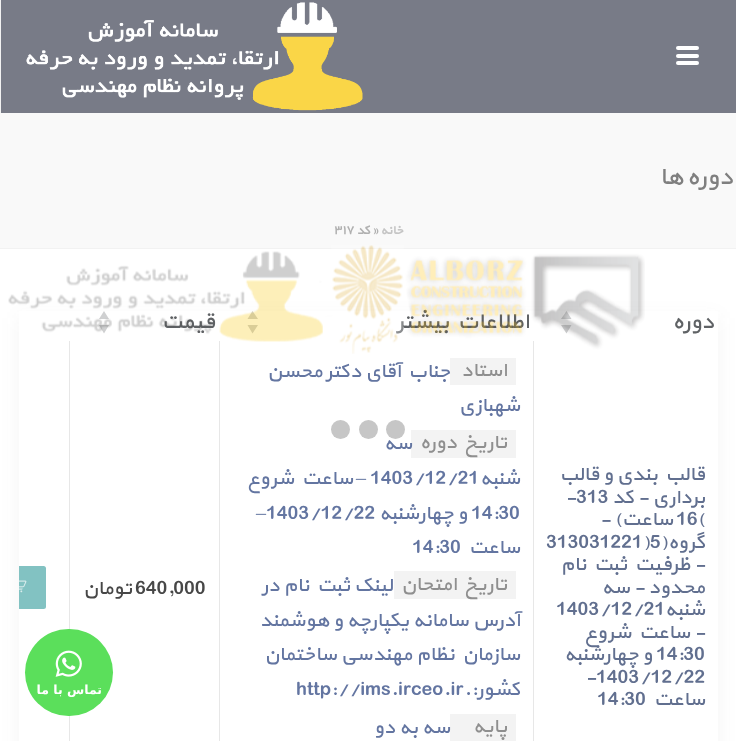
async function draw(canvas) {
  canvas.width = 736
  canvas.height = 741
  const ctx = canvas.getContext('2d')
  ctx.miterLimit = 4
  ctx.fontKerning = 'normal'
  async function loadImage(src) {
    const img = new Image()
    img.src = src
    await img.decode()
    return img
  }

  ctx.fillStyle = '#fff'
  ctx.fillRect(0, 0, 736, 741)
  ctx.fillStyle = '#f9f9f9'
  ctx.fillRect(0, 113, 736, 135)
  ctx.fillStyle = '#f2f2f2'
  ctx.fillRect(0, 248, 736, 1)
  ctx.fillRect(0, 0, 1, 113)
  ctx.fillStyle = '#787b87'
  ctx.fillRect(1, 0, 735, 113)
  ctx.fillStyle = '#fff'
  ctx.beginPath()
  ctx.roundRect(676, 46, 23, 4, 2)
  ctx.fill()
  ctx.beginPath()
  ctx.roundRect(676, 54, 23, 4, 2)
  ctx.fill()
  ctx.beginPath()
  ctx.roundRect(676, 61, 23, 4, 2)
  ctx.fill()
  ctx.drawImage(await loadImage('image0.png'), 26, 2, 337, 109)
  ctx.letterSpacing = '2.5px'
  ctx.wordSpacing = '-2px'
  ctx.direction = 'rtl'
  ctx.font = '25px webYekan'
  ctx.fillStyle = '#7f7f7f'
  ctx.fillText('دوره ها', 733, 184)
  ctx.letterSpacing = '0px'
  ctx.wordSpacing = '0px'
  ctx.font = 'bold 12.5px webYekan'
  ctx.fillStyle = '#c5c5c5'
  ctx.fillText('خانه', 403, 234)
  ctx.direction = 'ltr'
  ctx.fillStyle = '#b0b0b0'
  ctx.fillText('»', 372, 234)
  ctx.direction = 'rtl'
  ctx.fillText('کد', 370, 234)
  ctx.direction = 'ltr'
  ctx.fillText('۳۱۷', 333, 234)
  ctx.fillStyle = '#4747470f'
  ctx.filter = 'blur(9.5px)'
  ctx.beginPath()
  ctx.rect(19, 318, 699, 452)
  ctx.fill()
  ctx.filter = 'none'
  ctx.fillStyle = '#fff'
  ctx.fillRect(19, 341, 699, 400)
  ctx.fillStyle = '#e7e7e7'
  ctx.fillRect(533, 340, 1, 401)
  ctx.fillRect(219, 340, 1, 401)
  ctx.fillRect(69, 340, 1, 401)
  ctx.fillStyle = '#fff'
  ctx.fillRect(19, 311, 699, 30)
  ctx.direction = 'rtl'
  ctx.font = '22.5px webYekan'
  ctx.fillStyle = '#5f6265'
  ctx.fillText('دوره', 714, 328)
  ctx.fillStyle = '#cfd0d1'
  ctx.beginPath()
  ctx.moveTo(566.5, 311)
  ctx.lineTo(571.5, 319)
  ctx.lineTo(561, 319)
  ctx.closePath()
  ctx.moveTo(566.5, 333.5)
  ctx.lineTo(561, 325)
  ctx.lineTo(571.5, 325)
  ctx.closePath()
  ctx.fill()
  ctx.fillStyle = '#5f6265'
  ctx.fillText('اطلاعات بیشتر', 529, 328)
  ctx.fillStyle = '#cfd0d1'
  ctx.beginPath()
  ctx.moveTo(252.5, 311)
  ctx.lineTo(258, 319)
  ctx.lineTo(247.5, 319)
  ctx.closePath()
  ctx.moveTo(252.5, 333.5)
  ctx.lineTo(247.5, 325)
  ctx.lineTo(258, 325)
  ctx.closePath()
  ctx.fill()
  ctx.fillStyle = '#5f6265'
  ctx.fillText('قیمت', 215, 328)
  ctx.fillStyle = '#cfd0d1'
  ctx.beginPath()
  ctx.moveTo(104, 311)
  ctx.lineTo(109, 319)
  ctx.lineTo(99, 319)
  ctx.closePath()
  ctx.moveTo(104, 333.5)
  ctx.lineTo(99, 325)
  ctx.lineTo(109, 325)
  ctx.closePath()
  ctx.fill()
  ctx.font = '20px webYekan'
  ctx.fillStyle = '#616f8f'
  ctx.fillText('قالب بندی و قالب', 705, 480)
  ctx.fillText('برداری - کد', 705, 503)
  ctx.direction = 'ltr'
  ctx.fillText('-313', 565, 503)
  ctx.fillText('16(', 676, 525)
  ctx.direction = 'rtl'
  ctx.fillText('ساعت) -', 673, 525)
  ctx.fillText('گروه(', 705, 548)
  ctx.direction = 'ltr'
  ctx.fillText('313031221)5', 546, 548)
  ctx.direction = 'rtl'
  ctx.fillText('- ظرفیت ثبت نام', 705, 570)
  ctx.fillText('محدود - سه', 705, 593)
  ctx.fillText('شنبه', 705, 615)
  ctx.direction = 'ltr'
  ctx.fillText('1403/12/21', 556, 615)
  ctx.direction = 'rtl'
  ctx.fillText('- ساعت شروع', 705, 638)
  ctx.direction = 'ltr'
  ctx.fillText('14:30', 656, 660)
  ctx.direction = 'rtl'
  ctx.fillText('و چهارشنبه', 652, 660)
  ctx.direction = 'ltr'
  ctx.fillText('-1403/12/22', 585, 683)
  ctx.direction = 'rtl'
  ctx.fillText('ساعت', 705, 705)
  ctx.direction = 'ltr'
  ctx.fillText('14:30', 597, 705)
  ctx.fillStyle = '#f3f3f3'
  ctx.fillRect(450, 358, 66, 27)
  ctx.direction = 'rtl'
  ctx.fillStyle = '#8f8f8f'
  ctx.fillText('استاد', 507, 376)
  ctx.fillStyle = '#6375a1'
  ctx.fillText('جناب آقای دکتر محسن', 450, 377)
  ctx.fillText('شهبازی', 520, 411)
  ctx.fillStyle = '#f3f3f3'
  ctx.fillRect(411, 430, 105, 28)
  ctx.fillStyle = '#8f8f8f'
  ctx.fillText('تاریخ دوره', 507, 448)
  ctx.fillStyle = '#6375a1'
  ctx.fillText('سه', 412, 449)
  ctx.fillText('شنبه', 520, 484)
  ctx.direction = 'ltr'
  ctx.fillText('1403/12/21', 370, 484)
  ctx.direction = 'rtl'
  ctx.font = '20px Liberation Serif'
  ctx.fillText('–', 366, 484)
  ctx.font = '20px webYekan'
  ctx.fillText('ساعت شروع', 353, 484)
  ctx.direction = 'ltr'
  ctx.fillText('14:30', 471, 519)
  ctx.direction = 'rtl'
  ctx.fillText('و چهارشنبه', 467, 519)
  ctx.direction = 'ltr'
  ctx.fillText('1403/12/22', 266, 519)
  ctx.font = '20px Liberation Serif'
  ctx.fillText('–', 256, 519)
  ctx.direction = 'rtl'
  ctx.font = '20px webYekan'
  ctx.fillText('ساعت', 520, 553)
  ctx.direction = 'ltr'
  ctx.fillText('14:30', 412, 553)
  ctx.fillStyle = '#f3f3f3'
  ctx.fillRect(394, 571, 122, 28)
  ctx.direction = 'rtl'
  ctx.fillStyle = '#8f8f8f'
  ctx.fillText('تاریخ امتحان', 507, 590)
  ctx.fillStyle = '#6375a1'
  ctx.fillText('لینک ثبت نام در', 393, 591)
  ctx.fillText('آدرس سامانه یکپارچه و هوشمند', 520, 626)
  ctx.fillText('سازمان نظام مهندسی ساختمان', 520, 660)
  ctx.fillText('کشور:.', 520, 695)
  ctx.direction = 'ltr'
  ctx.fillText('http://ims.irceo.ir', 296, 695)
  ctx.fillStyle = '#f3f3f3'
  ctx.fillRect(450, 714, 66, 27)
  ctx.direction = 'rtl'
  ctx.fillStyle = '#8f8f8f'
  ctx.fillText('پایه', 507, 732)
  ctx.fillStyle = '#6375a1'
  ctx.fillText('سه به دو', 450, 733)
  ctx.direction = 'ltr'
  ctx.fillStyle = '#474747'
  ctx.fillText('640,000', 135, 594)
  ctx.direction = 'rtl'
  ctx.fillText('تومان', 132, 594)
  ctx.fillStyle = '#82c2c2'
  ctx.beginPath()
  ctx.roundRect(19, 566, 27, 43, [0, 2.5, 2.5, 0])
  ctx.fill()
  ctx.drawImage(await loadImage('image1.png'), 19, 580, 8, 13)
  ctx.drawImage(await loadImage('image2.png'), 8, 245, 637, 109)
  ctx.fillStyle = '#c6c6c6'
  ctx.beginPath()
  ctx.arc(395.5, 429.5, 9.5, 0, 2 * Math.PI)
  ctx.fill()
  ctx.beginPath()
  ctx.arc(368.5, 429.5, 9.5, 0, 2 * Math.PI)
  ctx.fill()
  ctx.beginPath()
  ctx.arc(340.5, 429.5, 9.5, 0, 2 * Math.PI)
  ctx.fill()
  ctx.fillStyle = '#5bdf5b'
  ctx.beginPath()
  ctx.roundRect(25, 629, 88, 87, 43.5)
  ctx.fill()
  ctx.drawImage(await loadImage('image3.png'), 55, 650, 27, 27)
  ctx.font = 'bold 12.5px DejaVu Sans'
  ctx.fillStyle = '#fff'
  ctx.fillText('تماس با ما', 102, 694)
}

draw(document.querySelector('canvas'))
